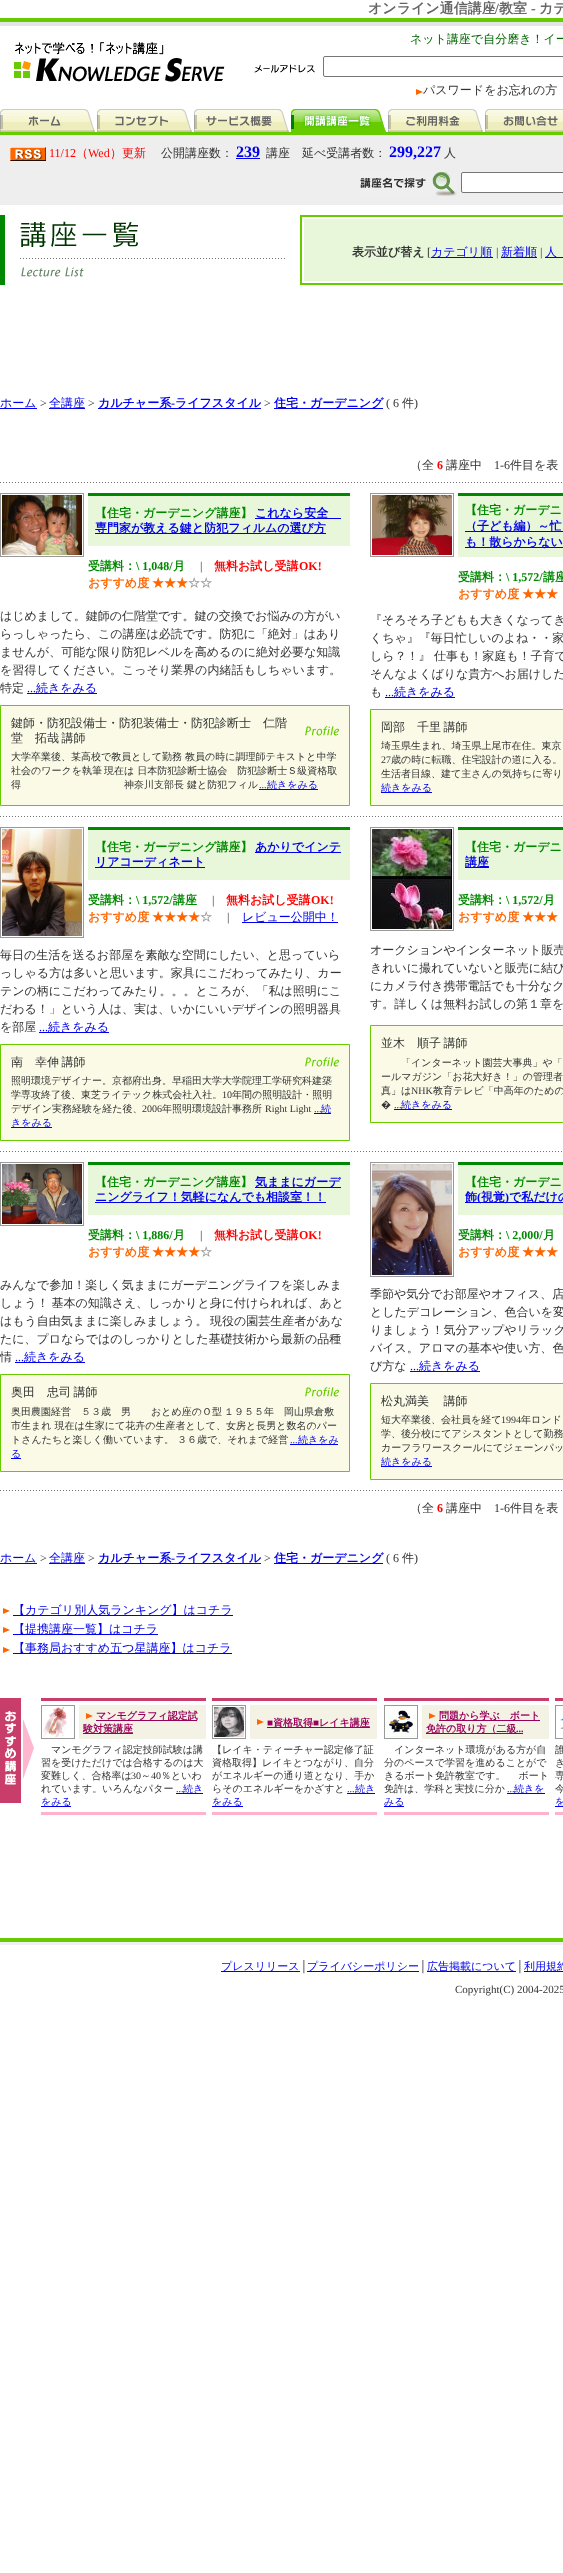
async function draw(canvas) {
  canvas.width = 563
  canvas.height = 2573
  const ctx = canvas.getContext('2d')
  ctx.miterLimit = 4
  ctx.fontKerning = 'normal'
  async function loadImage(src) {
    const img = new Image()
    img.src = src
    await img.decode()
    return img
  }

  ctx.fillStyle = '#fff'
  ctx.fillRect(0, 0, 563, 2573)
  ctx.font = 'bold 14px WenQuanYi Zen Hei'
  ctx.fillStyle = '#666'
  ctx.fillText('オンライン通信講座', 368, 13)
  ctx.font = 'bold 14px Liberation Serif'
  ctx.fillText('/', 495, 13)
  ctx.font = 'bold 14px WenQuanYi Zen Hei'
  ctx.fillText('教室', 499, 13)
  ctx.font = 'bold 14px Liberation Serif'
  ctx.fillText('-', 531, 13)
  ctx.font = 'bold 14px WenQuanYi Zen Hei'
  ctx.fillText('カテ', 539, 13)
  ctx.fillStyle = '#6c0'
  ctx.fillRect(0, 18, 563, 4)
  ctx.fillStyle = '#e4e4e4'
  ctx.fillRect(0, 22, 563, 4)
  ctx.drawImage(await loadImage('image0.png'), 14, 42, 211, 40)
  ctx.font = '500 12px WenQuanYi Zen Hei'
  ctx.fillStyle = '#060'
  ctx.fillText('ネット講座で自分磨き！イー', 410, 43)
  ctx.drawImage(await loadImage('image1.png'), 254, 64, 61, 9)
  ctx.beginPath()
  ctx.roundRect(323.5, 56.5, 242, 20, 1.5)
  ctx.strokeStyle = '#767676'
  ctx.stroke()
  ctx.drawImage(await loadImage('image2.png'), 416, 89, 7, 6)
  ctx.fillStyle = '#333'
  ctx.fillText('パスワードをお忘れの方', 423, 94)
  ctx.drawImage(await loadImage('image3.png'), 0, 109, 95, 23)
  ctx.drawImage(await loadImage('image4.png'), 97, 109, 95, 23)
  ctx.drawImage(await loadImage('image5.png'), 194, 109, 95, 23)
  ctx.drawImage(await loadImage('image6.png'), 291, 109, 95, 23)
  ctx.drawImage(await loadImage('image7.png'), 388, 109, 95, 23)
  ctx.drawImage(await loadImage('image8.png'), 485, 109, 78, 23)
  ctx.fillStyle = '#eee'
  ctx.fillRect(0, 135, 563, 70)
  ctx.fillStyle = '#6c0'
  ctx.fillRect(0, 132, 563, 3)
  ctx.drawImage(await loadImage('image9.png'), 10, 147, 36, 14)
  ctx.font = '12px Liberation Serif'
  ctx.fillStyle = '#f00'
  ctx.fillText('11/12', 49, 157)
  ctx.font = '500 12px WenQuanYi Zen Hei'
  ctx.fillText('（', 76, 157)
  ctx.font = '12px Liberation Serif'
  ctx.fillText('Wed', 88, 157)
  ctx.font = '500 12px WenQuanYi Zen Hei'
  ctx.fillText('）更新', 110, 157)
  ctx.fillStyle = '#333'
  ctx.fillText('公開講座数：', 161, 157)
  ctx.font = 'bold 16px Liberation Serif'
  ctx.fillStyle = '#00e'
  ctx.fillText('239', 236, 157)
  ctx.fillRect(236, 158, 24, 1)
  ctx.font = '500 12px WenQuanYi Zen Hei'
  ctx.fillStyle = '#333'
  ctx.fillText('講座　延べ受講者数：', 266, 157)
  ctx.font = 'bold 16px Liberation Serif'
  ctx.fillStyle = '#00f'
  ctx.fillText('299,227', 389, 157)
  ctx.font = '500 12px WenQuanYi Zen Hei'
  ctx.fillStyle = '#333'
  ctx.fillText('人', 444, 157)
  ctx.drawImage(await loadImage('image10.png'), 360, 172, 97, 24)
  ctx.fillStyle = '#fff'
  ctx.beginPath()
  ctx.roundRect(461.5, 172.5, 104, 20, 1.5)
  ctx.fill()
  ctx.stroke()
  ctx.drawImage(await loadImage('image11.png'), 0, 215, 285, 70)
  ctx.strokeStyle = '#6c0'
  ctx.lineWidth = 2
  ctx.strokeRect(301, 216, 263, 68)
  ctx.fillStyle = '#e8f7d9'
  ctx.fillRect(304, 219, 259, 62)
  ctx.font = 'bold 12px WenQuanYi Zen Hei'
  ctx.fillStyle = '#333'
  ctx.fillText('表示並び替え', 352, 256)
  ctx.font = '12px Liberation Serif'
  ctx.fillText('[', 427, 256)
  ctx.fillStyle = '#00e'
  ctx.fillRect(431, 257, 62, 1)
  ctx.font = '500 12px WenQuanYi Zen Hei'
  ctx.fillText('カテゴリ順', 431, 256)
  ctx.font = '12px Liberation Serif'
  ctx.fillStyle = '#333'
  ctx.fillText('|', 496, 256)
  ctx.fillStyle = '#00e'
  ctx.fillRect(501, 257, 36, 1)
  ctx.font = '500 12px WenQuanYi Zen Hei'
  ctx.fillText('新着順', 501, 256)
  ctx.font = '12px Liberation Serif'
  ctx.fillStyle = '#333'
  ctx.fillText('|', 540, 256)
  ctx.fillStyle = '#00e'
  ctx.fillRect(545, 257, 18, 1)
  ctx.font = '500 12px WenQuanYi Zen Hei'
  ctx.fillText('人', 545, 256)
  ctx.fillRect(0, 408, 37, 1)
  ctx.fillText('ホーム', 0, 407)
  ctx.font = '12px Liberation Serif'
  ctx.fillStyle = '#333'
  ctx.fillText('>', 40, 407)
  ctx.fillStyle = '#00e'
  ctx.fillRect(49, 408, 36, 1)
  ctx.font = '500 12px WenQuanYi Zen Hei'
  ctx.fillText('全講座', 49, 407)
  ctx.font = '12px Liberation Serif'
  ctx.fillStyle = '#333'
  ctx.fillText('>', 88, 407)
  ctx.fillStyle = '#00e'
  ctx.fillRect(98, 408, 163, 1)
  ctx.font = 'bold 12px WenQuanYi Zen Hei'
  ctx.fillText('カルチャー系', 98, 407)
  ctx.font = 'bold 12px Liberation Serif'
  ctx.fillText('-', 171, 407)
  ctx.font = 'bold 12px WenQuanYi Zen Hei'
  ctx.fillText('ライフスタイル', 175, 407)
  ctx.font = '12px Liberation Serif'
  ctx.fillStyle = '#333'
  ctx.fillText('>', 264, 407)
  ctx.fillStyle = '#00e'
  ctx.fillRect(274, 408, 109, 1)
  ctx.font = 'bold 12px WenQuanYi Zen Hei'
  ctx.fillText('住宅・ガーデニング', 274, 407)
  ctx.font = '12px Liberation Serif'
  ctx.fillStyle = '#333'
  ctx.fillText('( 6', 386, 407)
  ctx.font = '500 12px WenQuanYi Zen Hei'
  ctx.fillText('件', 402, 407)
  ctx.font = '12px Liberation Serif'
  ctx.fillText(')', 414, 407)
  ctx.font = '500 12px WenQuanYi Zen Hei'
  ctx.fillText('（全', 410, 469)
  ctx.font = 'bold 12px Liberation Serif'
  ctx.fillStyle = '#f00'
  ctx.fillText('6', 437, 469)
  ctx.font = '500 12px WenQuanYi Zen Hei'
  ctx.fillStyle = '#333'
  ctx.fillText('講座中', 446, 469)
  ctx.font = '12px Liberation Serif'
  ctx.fillText('1-6', 494, 469)
  ctx.font = '500 12px WenQuanYi Zen Hei'
  ctx.fillText('件目を表', 510, 469)
  ctx.drawImage(await loadImage('image12.png'), 0, 482, 562, 1)
  ctx.strokeStyle = '#999'
  ctx.lineWidth = 1
  ctx.strokeRect(0.5, 493.5, 83, 63)
  ctx.drawImage(await loadImage('image13.png'), 2, 495, 80, 60)
  ctx.fillStyle = '#008900'
  ctx.fillRect(88, 493, 262, 3)
  ctx.fillStyle = '#e8f7d9'
  ctx.fillRect(88, 496, 262, 50)
  ctx.font = 'bold 12px WenQuanYi Zen Hei'
  ctx.fillStyle = '#008900'
  ctx.fillText('【住宅・ガーデニング講座】', 95, 517)
  ctx.fillStyle = '#00e'
  ctx.fillRect(255, 518, 86, 1)
  ctx.fillText('これなら安全', 255, 517)
  ctx.fillRect(95, 533, 231, 1)
  ctx.fillText('専門家が教える鍵と防犯フィルムの選び方', 95, 532)
  ctx.fillStyle = '#008900'
  ctx.fillText('受講料：', 88, 570)
  ctx.font = 'bold 12px Liberation Serif'
  ctx.fillText('\\ 1,048/', 136, 570)
  ctx.font = 'bold 12px WenQuanYi Zen Hei'
  ctx.fillText('月', 173, 570)
  ctx.font = '12px Liberation Serif'
  ctx.fillStyle = '#333'
  ctx.fillText('|', 200, 570)
  ctx.font = 'bold 12px WenQuanYi Zen Hei'
  ctx.fillStyle = '#f00'
  ctx.fillText('無料お試し受講', 214, 570)
  ctx.font = 'bold 12px Liberation Serif'
  ctx.fillText('OK!', 299, 570)
  ctx.font = 'bold 12px WenQuanYi Zen Hei'
  ctx.fillStyle = '#f60'
  ctx.fillText('おすすめ度', 88, 587)
  ctx.fillText('★★★', 152, 587)
  ctx.fillStyle = '#999'
  ctx.fillText('☆☆', 188, 587)
  ctx.font = '500 12px WenQuanYi Zen Hei'
  ctx.fillStyle = '#333'
  ctx.fillText('はじめまして。鍵師の仁階堂です。鍵の交換でお悩みの方がい', 0, 620)
  ctx.fillText('らっしゃったら、この講座は必読です。防犯に「絶対」はあり', 0, 638)
  ctx.fillText('ませんが、可能な限り防犯レベルを高めるのに絶対必要な知識', 0, 656)
  ctx.fillText('を習得してください。こっそり業界の内緒話もしちゃいます。', 0, 674)
  ctx.fillText('特定', 0, 692)
  ctx.font = '12px Liberation Serif'
  ctx.fillStyle = '#00e'
  ctx.fillText('...', 27, 692)
  ctx.fillRect(27, 693, 70, 1)
  ctx.font = '500 12px WenQuanYi Zen Hei'
  ctx.fillText('続きをみる', 36, 692)
  ctx.fillStyle = '#fafae7'
  ctx.beginPath()
  ctx.rect(0.5, 705.5, 349, 100)
  ctx.fill()
  ctx.strokeStyle = '#6c0'
  ctx.stroke()
  ctx.fillStyle = '#333'
  ctx.fillText('鍵師・防犯設備士・防犯装備士・防犯診断士　仁階', 11, 727)
  ctx.wordSpacing = '-1px'
  ctx.fillText('堂　拓哉 講師', 11, 742)
  ctx.drawImage(await loadImage('image14.png'), 305, 726, 34, 10)
  ctx.wordSpacing = '0px'
  ctx.font = '500 10px WenQuanYi Zen Hei'
  ctx.fillText('大学卒業後、某高校で教員として勤務 教員の時に調理師テキストと中学', 11, 760)
  ctx.fillText('社会のワークを執筆', 11, 774)
  ctx.fillText('現在は 日本防犯診断士協会　防犯診断士Ｓ級資格取', 104, 774)
  ctx.fillText('得 　　　　　　　　　　神奈川支部長 鍵と防犯フィル', 11, 788)
  ctx.font = '10px Liberation Serif'
  ctx.fillStyle = '#00e'
  ctx.fillText('...', 259, 788)
  ctx.fillRect(259, 789, 59, 1)
  ctx.font = '500 10px WenQuanYi Zen Hei'
  ctx.fillText('続きをみる', 267, 788)
  ctx.strokeStyle = '#999'
  ctx.strokeRect(370.5, 493.5, 83, 63)
  ctx.drawImage(await loadImage('image15.png'), 372, 495, 80, 60)
  ctx.fillStyle = '#008900'
  ctx.fillRect(458, 493, 105, 3)
  ctx.fillStyle = '#e8f7d9'
  ctx.fillRect(458, 496, 105, 61)
  ctx.font = 'bold 12px WenQuanYi Zen Hei'
  ctx.fillStyle = '#008900'
  ctx.fillText('【住宅・ガーデニ', 465, 514)
  ctx.fillStyle = '#00e'
  ctx.fillRect(465, 531, 98, 1)
  ctx.fillText('（子ども編）～忙', 465, 530)
  ctx.fillRect(465, 547, 98, 1)
  ctx.fillText('も！散らからない', 465, 546)
  ctx.fillStyle = '#008900'
  ctx.fillText('受講料：', 458, 581)
  ctx.font = 'bold 12px Liberation Serif'
  ctx.fillText('\\ 1,572/', 506, 581)
  ctx.font = 'bold 12px WenQuanYi Zen Hei'
  ctx.fillText('講座', 543, 581)
  ctx.fillStyle = '#f60'
  ctx.fillText('おすすめ度', 458, 598)
  ctx.fillText('★★★', 522, 598)
  ctx.font = '500 12px WenQuanYi Zen Hei'
  ctx.fillStyle = '#333'
  ctx.fillText('『そろそろ子どもも大きくなってき', 370, 624)
  ctx.fillText('くちゃ』『毎日忙しいのよね・・家', 370, 642)
  ctx.fillText('しら？！』', 370, 660)
  ctx.fillText('仕事も！家庭も！子育て', 434, 660)
  ctx.fillText('そんなよくばりな貴方へお届けした', 370, 678)
  ctx.fillText('も', 370, 696)
  ctx.font = '12px Liberation Serif'
  ctx.fillStyle = '#00e'
  ctx.fillText('...', 385, 696)
  ctx.fillRect(385, 697, 70, 1)
  ctx.font = '500 12px WenQuanYi Zen Hei'
  ctx.fillText('続きをみる', 394, 696)
  ctx.fillStyle = '#fafae7'
  ctx.beginPath()
  ctx.rect(370.5, 709.5, 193, 96)
  ctx.fill()
  ctx.strokeStyle = '#6c0'
  ctx.stroke()
  ctx.wordSpacing = '-1px'
  ctx.fillStyle = '#333'
  ctx.fillText('岡部　千里 講師', 381, 731)
  ctx.wordSpacing = '0px'
  ctx.font = '500 10px WenQuanYi Zen Hei'
  ctx.fillText('埼玉県生まれ、埼玉県上尾市在住。東京', 381, 749)
  ctx.font = '10px Liberation Serif'
  ctx.fillText('27', 381, 763)
  ctx.font = '500 10px WenQuanYi Zen Hei'
  ctx.fillText('歳の時に転職、住宅設計の道に入る。', 391, 763)
  ctx.fillText('生活者目線、建て主さんの気持ちに寄り', 381, 777)
  ctx.fillStyle = '#00e'
  ctx.fillRect(381, 792, 51, 1)
  ctx.fillText('続きをみる', 381, 791)
  ctx.drawImage(await loadImage('image12.png'), 0, 816, 562, 1)
  ctx.strokeStyle = '#999'
  ctx.strokeRect(0.5, 827.5, 83, 110)
  ctx.drawImage(await loadImage('image16.png'), 2, 829, 80, 107)
  ctx.fillStyle = '#008900'
  ctx.fillRect(88, 827, 262, 3)
  ctx.fillStyle = '#e8f7d9'
  ctx.fillRect(88, 830, 262, 50)
  ctx.font = 'bold 12px WenQuanYi Zen Hei'
  ctx.fillStyle = '#008900'
  ctx.fillText('【住宅・ガーデニング講座】', 95, 851)
  ctx.fillStyle = '#00e'
  ctx.fillRect(255, 852, 86, 1)
  ctx.fillText('あかりでインテ', 255, 851)
  ctx.fillRect(95, 867, 110, 1)
  ctx.fillText('リアコーディネート', 95, 866)
  ctx.fillStyle = '#008900'
  ctx.fillText('受講料：', 88, 904)
  ctx.font = 'bold 12px Liberation Serif'
  ctx.fillText('\\ 1,572/', 136, 904)
  ctx.font = 'bold 12px WenQuanYi Zen Hei'
  ctx.fillText('講座', 173, 904)
  ctx.font = '12px Liberation Serif'
  ctx.fillStyle = '#333'
  ctx.fillText('|', 212, 904)
  ctx.font = 'bold 12px WenQuanYi Zen Hei'
  ctx.fillStyle = '#f00'
  ctx.fillText('無料お試し受講', 226, 904)
  ctx.font = 'bold 12px Liberation Serif'
  ctx.fillText('OK!', 311, 904)
  ctx.font = 'bold 12px WenQuanYi Zen Hei'
  ctx.fillStyle = '#f60'
  ctx.fillText('おすすめ度', 88, 921)
  ctx.fillText('★★★★', 152, 921)
  ctx.fillStyle = '#999'
  ctx.fillText('☆', 200, 921)
  ctx.font = '12px Liberation Serif'
  ctx.fillStyle = '#333'
  ctx.fillText('|', 227, 921)
  ctx.fillStyle = '#00e'
  ctx.fillRect(242, 922, 96, 1)
  ctx.font = '500 12px WenQuanYi Zen Hei'
  ctx.fillText('レビュー公開中！', 242, 921)
  ctx.fillStyle = '#333'
  ctx.fillText('毎日の生活を送るお部屋を素敵な空間にしたい、と思っていら', 0, 959)
  ctx.fillText('っしゃる方は多いと思います。家具にこだわってみたり、カー', 0, 977)
  ctx.fillText('テンの柄にこだわってみたり。。。ところが、「私は照明にこ', 0, 995)
  ctx.fillText('だわる！」という人は、実は、いかにいいデザインの照明器具', 0, 1013)
  ctx.fillText('を部屋', 0, 1031)
  ctx.font = '12px Liberation Serif'
  ctx.fillStyle = '#00e'
  ctx.fillText('...', 39, 1031)
  ctx.fillRect(39, 1032, 70, 1)
  ctx.font = '500 12px WenQuanYi Zen Hei'
  ctx.fillText('続きをみる', 48, 1031)
  ctx.fillStyle = '#fafae7'
  ctx.beginPath()
  ctx.rect(0.5, 1044.5, 349, 96)
  ctx.fill()
  ctx.strokeStyle = '#6c0'
  ctx.stroke()
  ctx.wordSpacing = '-1px'
  ctx.fillStyle = '#333'
  ctx.fillText('南　幸伸 講師', 11, 1066)
  ctx.drawImage(await loadImage('image14.png'), 305, 1057, 34, 10)
  ctx.wordSpacing = '0px'
  ctx.font = '500 10px WenQuanYi Zen Hei'
  ctx.fillText('照明環境デザイナー。京都府出身。早稲田大学大学院理工学研究科建築', 11, 1084)
  ctx.fillText('学専攻終了後、東芝ライテック株式会社入社。', 11, 1098)
  ctx.font = '10px Liberation Serif'
  ctx.fillText('10', 222, 1098)
  ctx.font = '500 10px WenQuanYi Zen Hei'
  ctx.fillText('年間の照明設計・照明', 232, 1098)
  ctx.fillText('デザイン実務経験を経た後、', 11, 1112)
  ctx.font = '10px Liberation Serif'
  ctx.fillText('2006', 142, 1112)
  ctx.font = '500 10px WenQuanYi Zen Hei'
  ctx.fillText('年照明環境設計事務所', 162, 1112)
  ctx.font = '10px Liberation Serif'
  ctx.fillText('Right Light', 265, 1112)
  ctx.fillStyle = '#00e'
  ctx.fillText('...', 314, 1112)
  ctx.fillRect(314, 1113, 17, 1)
  ctx.font = '500 10px WenQuanYi Zen Hei'
  ctx.fillText('続', 321, 1112)
  ctx.fillRect(11, 1127, 41, 1)
  ctx.fillText('きをみる', 11, 1126)
  ctx.strokeStyle = '#999'
  ctx.strokeRect(370.5, 827.5, 83, 103)
  ctx.drawImage(await loadImage('image17.png'), 372, 829, 80, 100)
  ctx.fillStyle = '#008900'
  ctx.fillRect(458, 827, 105, 3)
  ctx.fillStyle = '#e8f7d9'
  ctx.fillRect(458, 830, 105, 50)
  ctx.font = 'bold 12px WenQuanYi Zen Hei'
  ctx.fillStyle = '#008900'
  ctx.fillText('【住宅・ガーデニ', 465, 851)
  ctx.fillStyle = '#00e'
  ctx.fillRect(465, 867, 24, 1)
  ctx.fillText('講座', 465, 866)
  ctx.fillStyle = '#008900'
  ctx.fillText('受講料：', 458, 904)
  ctx.font = 'bold 12px Liberation Serif'
  ctx.fillText('\\ 1,572/', 506, 904)
  ctx.font = 'bold 12px WenQuanYi Zen Hei'
  ctx.fillText('月', 543, 904)
  ctx.fillStyle = '#f60'
  ctx.fillText('おすすめ度', 458, 921)
  ctx.fillText('★★★', 522, 921)
  ctx.font = '500 12px WenQuanYi Zen Hei'
  ctx.fillStyle = '#333'
  ctx.fillText('オークションやインターネット販売', 370, 954)
  ctx.fillText('きれいに撮れていないと販売に結び', 370, 972)
  ctx.fillText('にカメラ付き携帯電話でも十分なク', 370, 990)
  ctx.fillText('す。詳しくは無料お試しの第１章を', 370, 1008)
  ctx.fillStyle = '#fafae7'
  ctx.beginPath()
  ctx.rect(370.5, 1025.5, 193, 97)
  ctx.fill()
  ctx.strokeStyle = '#6c0'
  ctx.stroke()
  ctx.wordSpacing = '-1px'
  ctx.fillStyle = '#333'
  ctx.fillText('並木　順子 講師', 381, 1047)
  ctx.wordSpacing = '0px'
  ctx.font = '500 10px WenQuanYi Zen Hei'
  ctx.fillText('「インターネット園芸大事典」や「', 401, 1066)
  ctx.fillText('ールマガジン「お花大好き！」の管理者', 381, 1080)
  ctx.fillText('真」は', 381, 1094)
  ctx.font = '10px Liberation Serif'
  ctx.fillText('NHK', 411, 1094)
  ctx.font = '500 10px WenQuanYi Zen Hei'
  ctx.fillText('教育テレビ「中高年のための', 433, 1094)
  ctx.font = '10px Noto Sans'
  ctx.fillText('�', 381, 1108)
  ctx.font = '10px Liberation Serif'
  ctx.fillStyle = '#00e'
  ctx.fillText('...', 394, 1108)
  ctx.fillRect(394, 1109, 58, 1)
  ctx.font = '500 10px WenQuanYi Zen Hei'
  ctx.fillText('続きをみる', 401, 1108)
  ctx.drawImage(await loadImage('image12.png'), 0, 1151, 562, 1)
  ctx.strokeStyle = '#999'
  ctx.strokeRect(0.5, 1162.5, 83, 63)
  ctx.drawImage(await loadImage('image18.png'), 2, 1164, 80, 60)
  ctx.fillStyle = '#008900'
  ctx.fillRect(88, 1162, 262, 3)
  ctx.fillStyle = '#e8f7d9'
  ctx.fillRect(88, 1165, 262, 50)
  ctx.font = 'bold 12px WenQuanYi Zen Hei'
  ctx.fillStyle = '#008900'
  ctx.fillText('【住宅・ガーデニング講座】', 95, 1186)
  ctx.fillStyle = '#00e'
  ctx.fillRect(255, 1187, 86, 1)
  ctx.fillText('気ままにガーデ', 255, 1186)
  ctx.fillRect(95, 1202, 231, 1)
  ctx.fillText('ニングライフ！気軽になんでも相談室！！', 95, 1201)
  ctx.fillStyle = '#008900'
  ctx.fillText('受講料：', 88, 1239)
  ctx.font = 'bold 12px Liberation Serif'
  ctx.fillText('\\ 1,886/', 136, 1239)
  ctx.font = 'bold 12px WenQuanYi Zen Hei'
  ctx.fillText('月', 173, 1239)
  ctx.font = '12px Liberation Serif'
  ctx.fillStyle = '#333'
  ctx.fillText('|', 200, 1239)
  ctx.font = 'bold 12px WenQuanYi Zen Hei'
  ctx.fillStyle = '#f00'
  ctx.fillText('無料お試し受講', 214, 1239)
  ctx.font = 'bold 12px Liberation Serif'
  ctx.fillText('OK!', 299, 1239)
  ctx.font = 'bold 12px WenQuanYi Zen Hei'
  ctx.fillStyle = '#f60'
  ctx.fillText('おすすめ度', 88, 1256)
  ctx.fillText('★★★★', 152, 1256)
  ctx.fillStyle = '#999'
  ctx.fillText('☆', 200, 1256)
  ctx.font = '500 12px WenQuanYi Zen Hei'
  ctx.fillStyle = '#333'
  ctx.fillText('みんなで参加！楽しく気ままにガーデニングライフを楽しみま', 0, 1289)
  ctx.wordSpacing = '-1px'
  ctx.fillText('しょう！ 基本の知識さえ、しっかりと身に付けられれば、あと', 0, 1307)
  ctx.fillText('はもう自由気ままに楽しみましょう。 現役の園芸生産者があな', 0, 1325)
  ctx.wordSpacing = '0px'
  ctx.fillText('たに、プロならではのしっかりとした基礎技術から最新の品種', 0, 1343)
  ctx.fillText('情', 0, 1361)
  ctx.font = '12px Liberation Serif'
  ctx.fillStyle = '#00e'
  ctx.fillText('...', 15, 1361)
  ctx.fillRect(15, 1362, 70, 1)
  ctx.font = '500 12px WenQuanYi Zen Hei'
  ctx.fillText('続きをみる', 24, 1361)
  ctx.fillStyle = '#fafae7'
  ctx.beginPath()
  ctx.rect(0.5, 1374.5, 349, 97)
  ctx.fill()
  ctx.strokeStyle = '#6c0'
  ctx.stroke()
  ctx.wordSpacing = '-1px'
  ctx.fillStyle = '#333'
  ctx.fillText('奥田　忠司 講師', 11, 1396)
  ctx.drawImage(await loadImage('image14.png'), 305, 1387, 34, 10)
  ctx.wordSpacing = '0px'
  ctx.font = '500 10px WenQuanYi Zen Hei'
  ctx.fillText('奥田農園経営　５３歳　男　　おとめ座のＯ型', 11, 1415)
  ctx.fillText('１９５５年　岡山県倉敷', 224, 1415)
  ctx.fillText('市生まれ 現在は生家にて花卉の生産者として、女房と長男と数名のパー', 11, 1429)
  ctx.fillText('トさんたちと楽しく働いています。 ３６歳で、それまで経営', 11, 1443)
  ctx.font = '10px Liberation Serif'
  ctx.fillStyle = '#00e'
  ctx.fillText('...', 290, 1443)
  ctx.fillRect(290, 1444, 48, 1)
  ctx.font = '500 10px WenQuanYi Zen Hei'
  ctx.fillText('続きをみ', 298, 1443)
  ctx.fillRect(11, 1458, 10, 1)
  ctx.fillText('る', 11, 1457)
  ctx.strokeStyle = '#999'
  ctx.strokeRect(370.5, 1162.5, 83, 114)
  ctx.drawImage(await loadImage('image19.png'), 372, 1164, 80, 111)
  ctx.fillStyle = '#008900'
  ctx.fillRect(458, 1162, 105, 3)
  ctx.fillStyle = '#e8f7d9'
  ctx.fillRect(458, 1165, 105, 50)
  ctx.font = 'bold 12px WenQuanYi Zen Hei'
  ctx.fillStyle = '#008900'
  ctx.fillText('【住宅・ガーデニ', 465, 1186)
  ctx.fillStyle = '#00e'
  ctx.fillRect(465, 1202, 98, 1)
  ctx.fillText('飾', 465, 1201)
  ctx.font = 'bold 12px Liberation Serif'
  ctx.fillText('(', 477, 1201)
  ctx.font = 'bold 12px WenQuanYi Zen Hei'
  ctx.fillText('視覚', 481, 1201)
  ctx.font = 'bold 12px Liberation Serif'
  ctx.fillText(')', 505, 1201)
  ctx.font = 'bold 12px WenQuanYi Zen Hei'
  ctx.fillText('で私だけの', 509, 1201)
  ctx.fillStyle = '#008900'
  ctx.fillText('受講料：', 458, 1239)
  ctx.font = 'bold 12px Liberation Serif'
  ctx.fillText('\\ 2,000/', 506, 1239)
  ctx.font = 'bold 12px WenQuanYi Zen Hei'
  ctx.fillText('月', 543, 1239)
  ctx.fillStyle = '#f60'
  ctx.fillText('おすすめ度', 458, 1256)
  ctx.fillText('★★★', 522, 1256)
  ctx.font = '500 12px WenQuanYi Zen Hei'
  ctx.fillStyle = '#333'
  ctx.fillText('季節や気分でお部屋やオフィス、店', 370, 1298)
  ctx.fillText('としたデコレーション、色合いを変', 370, 1316)
  ctx.fillText('りましょう！気分アップやリラック', 370, 1334)
  ctx.fillText('バイス。アロマの基本や使い方、色', 370, 1352)
  ctx.fillText('び方な', 370, 1370)
  ctx.font = '12px Liberation Serif'
  ctx.fillStyle = '#00e'
  ctx.fillText('...', 410, 1370)
  ctx.fillRect(410, 1371, 70, 1)
  ctx.font = '500 12px WenQuanYi Zen Hei'
  ctx.fillText('続きをみる', 419, 1370)
  ctx.fillStyle = '#fafae7'
  ctx.beginPath()
  ctx.rect(370.5, 1383.5, 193, 96)
  ctx.fill()
  ctx.strokeStyle = '#6c0'
  ctx.stroke()
  ctx.wordSpacing = '-1px'
  ctx.fillStyle = '#333'
  ctx.fillText('松丸満美　 講師', 381, 1405)
  ctx.wordSpacing = '0px'
  ctx.font = '500 10px WenQuanYi Zen Hei'
  ctx.fillText('短大卒業後、会社員を経て', 381, 1423)
  ctx.font = '10px Liberation Serif'
  ctx.fillText('1994', 501, 1423)
  ctx.font = '500 10px WenQuanYi Zen Hei'
  ctx.fillText('年ロンド', 521, 1423)
  ctx.fillText('学、後分校にてアシスタントとして勤務', 381, 1437)
  ctx.fillText('カーフラワースクールにてジェーンパッ', 381, 1451)
  ctx.fillStyle = '#00e'
  ctx.fillRect(381, 1466, 51, 1)
  ctx.fillText('続きをみる', 381, 1465)
  ctx.drawImage(await loadImage('image12.png'), 0, 1490, 562, 1)
  ctx.font = '500 12px WenQuanYi Zen Hei'
  ctx.fillStyle = '#333'
  ctx.fillText('（全', 410, 1512)
  ctx.font = 'bold 12px Liberation Serif'
  ctx.fillStyle = '#f00'
  ctx.fillText('6', 437, 1512)
  ctx.font = '500 12px WenQuanYi Zen Hei'
  ctx.fillStyle = '#333'
  ctx.fillText('講座中', 446, 1512)
  ctx.font = '12px Liberation Serif'
  ctx.fillText('1-6', 494, 1512)
  ctx.font = '500 12px WenQuanYi Zen Hei'
  ctx.fillText('件目を表', 510, 1512)
  ctx.fillStyle = '#00e'
  ctx.fillRect(0, 1563, 37, 1)
  ctx.fillText('ホーム', 0, 1562)
  ctx.font = '12px Liberation Serif'
  ctx.fillStyle = '#333'
  ctx.fillText('>', 40, 1562)
  ctx.fillStyle = '#00e'
  ctx.fillRect(49, 1563, 36, 1)
  ctx.font = '500 12px WenQuanYi Zen Hei'
  ctx.fillText('全講座', 49, 1562)
  ctx.font = '12px Liberation Serif'
  ctx.fillStyle = '#333'
  ctx.fillText('>', 88, 1562)
  ctx.fillStyle = '#00e'
  ctx.fillRect(98, 1563, 163, 1)
  ctx.font = 'bold 12px WenQuanYi Zen Hei'
  ctx.fillText('カルチャー系', 98, 1562)
  ctx.font = 'bold 12px Liberation Serif'
  ctx.fillText('-', 171, 1562)
  ctx.font = 'bold 12px WenQuanYi Zen Hei'
  ctx.fillText('ライフスタイル', 175, 1562)
  ctx.font = '12px Liberation Serif'
  ctx.fillStyle = '#333'
  ctx.fillText('>', 264, 1562)
  ctx.fillStyle = '#00e'
  ctx.fillRect(274, 1563, 109, 1)
  ctx.font = 'bold 12px WenQuanYi Zen Hei'
  ctx.fillText('住宅・ガーデニング', 274, 1562)
  ctx.font = '12px Liberation Serif'
  ctx.fillStyle = '#333'
  ctx.fillText('( 6', 386, 1562)
  ctx.font = '500 12px WenQuanYi Zen Hei'
  ctx.fillText('件', 402, 1562)
  ctx.font = '12px Liberation Serif'
  ctx.fillText(')', 414, 1562)
  ctx.drawImage(await loadImage('image2.png'), 3, 1608, 7, 6)
  ctx.fillStyle = '#00e'
  ctx.fillRect(13, 1615, 220, 1)
  ctx.font = '500 12px WenQuanYi Zen Hei'
  ctx.fillText('【カテゴリ別人気ランキング】はコチラ', 13, 1614)
  ctx.drawImage(await loadImage('image2.png'), 3, 1627, 7, 6)
  ctx.fillRect(13, 1634, 145, 1)
  ctx.fillText('【提携講座一覧】はコチラ', 13, 1633)
  ctx.drawImage(await loadImage('image2.png'), 3, 1647, 7, 6)
  ctx.fillRect(13, 1653, 219, 1)
  ctx.fillText('【事務局おすすめ五つ星講座】はコチラ', 13, 1652)
  ctx.drawImage(await loadImage('image20.png'), 0, 1698, 34, 105)
  ctx.fillStyle = '#c93d6a'
  ctx.fillRect(41, 1698, 165, 3)
  ctx.strokeStyle = '#999'
  ctx.strokeRect(41.5, 1705.5, 33, 33)
  ctx.drawImage(await loadImage('image21.png'), 43, 1707, 24, 30)
  ctx.fillStyle = '#f3f2e5'
  ctx.fillRect(79, 1705, 127, 34)
  ctx.drawImage(await loadImage('image22.png'), 86, 1713, 7, 6)
  ctx.fillStyle = '#99005b'
  ctx.fillRect(96, 1720, 101, 1)
  ctx.font = 'bold 10px WenQuanYi Zen Hei'
  ctx.fillText('マンモグラフィ認定試', 96, 1719)
  ctx.fillRect(83, 1733, 50, 1)
  ctx.fillText('験対策講座', 83, 1732)
  ctx.font = '500 10px WenQuanYi Zen Hei'
  ctx.fillStyle = '#333'
  ctx.fillText('マンモグラフィ認定技師試験は講', 51, 1753)
  ctx.fillText('習を受けただけでは合格するのは大', 41, 1766)
  ctx.fillText('変難しく、合格率は', 41, 1779)
  ctx.font = '10px Liberation Serif'
  ctx.fillText('30', 131, 1779)
  ctx.font = '500 10px WenQuanYi Zen Hei'
  ctx.fillText('～', 141, 1779)
  ctx.font = '10px Liberation Serif'
  ctx.fillText('40', 151, 1779)
  ctx.font = '500 10px WenQuanYi Zen Hei'
  ctx.fillText('％といわ', 161, 1779)
  ctx.fillText('れています。いろんなパター', 41, 1792)
  ctx.font = '10px Liberation Serif'
  ctx.fillStyle = '#00e'
  ctx.fillText('...', 176, 1792)
  ctx.fillRect(176, 1793, 27, 1)
  ctx.font = '500 10px WenQuanYi Zen Hei'
  ctx.fillText('続き', 183, 1792)
  ctx.fillRect(41, 1806, 30, 1)
  ctx.fillText('をみる', 41, 1805)
  ctx.fillStyle = '#ffb2cc'
  ctx.fillRect(41, 1812, 165, 3)
  ctx.fillStyle = '#c93d6a'
  ctx.fillRect(212, 1698, 165, 3)
  ctx.strokeRect(212.5, 1705.5, 33, 33)
  ctx.drawImage(await loadImage('image23.png'), 214, 1707, 30, 30)
  ctx.fillStyle = '#f3f2e5'
  ctx.fillRect(250, 1705, 127, 34)
  ctx.drawImage(await loadImage('image22.png'), 257, 1719, 7, 6)
  ctx.font = 'bold 10px Liberation Serif'
  ctx.fillStyle = '#99005b'
  ctx.fillText('■', 267, 1726)
  ctx.fillRect(267, 1727, 103, 1)
  ctx.font = 'bold 10px WenQuanYi Zen Hei'
  ctx.fillText('資格取得', 273, 1726)
  ctx.font = 'bold 10px Liberation Serif'
  ctx.fillText('■', 313, 1726)
  ctx.font = 'bold 10px WenQuanYi Zen Hei'
  ctx.fillText('レイキ講座', 319, 1726)
  ctx.font = '500 10px WenQuanYi Zen Hei'
  ctx.fillStyle = '#333'
  ctx.fillText('【レイキ・ティーチャー認定修了証', 212, 1753)
  ctx.fillText('資格取得】レイキとつながり、自分', 212, 1766)
  ctx.fillText('がエネルギーの通り道となり、手か', 212, 1779)
  ctx.fillText('らそのエネルギーをかざすと', 212, 1792)
  ctx.font = '10px Liberation Serif'
  ctx.fillStyle = '#00e'
  ctx.fillText('...', 347, 1792)
  ctx.fillRect(347, 1793, 28, 1)
  ctx.font = '500 10px WenQuanYi Zen Hei'
  ctx.fillText('続き', 355, 1792)
  ctx.fillRect(212, 1806, 31, 1)
  ctx.fillText('をみる', 212, 1805)
  ctx.fillStyle = '#ffb2cc'
  ctx.fillRect(212, 1812, 165, 3)
  ctx.fillStyle = '#c93d6a'
  ctx.fillRect(384, 1698, 165, 3)
  ctx.strokeRect(384.5, 1705.5, 33, 33)
  ctx.drawImage(await loadImage('image24.png'), 386, 1710, 30, 27)
  ctx.fillStyle = '#f3f2e5'
  ctx.fillRect(422, 1705, 127, 34)
  ctx.drawImage(await loadImage('image22.png'), 429, 1713, 7, 6)
  ctx.fillStyle = '#99005b'
  ctx.fillRect(439, 1720, 101, 1)
  ctx.font = 'bold 10px WenQuanYi Zen Hei'
  ctx.fillText('問題から学ぶ　ボート', 439, 1719)
  ctx.fillRect(426, 1733, 97, 1)
  ctx.fillText('免許の取り方（二級', 426, 1732)
  ctx.font = 'bold 10px Liberation Serif'
  ctx.fillText('...', 516, 1732)
  ctx.font = '500 10px WenQuanYi Zen Hei'
  ctx.fillStyle = '#333'
  ctx.fillText('インターネット環境がある方が自', 394, 1753)
  ctx.fillText('分のペースで学習を進めることがで', 384, 1766)
  ctx.fillText('きるボート免許教室です。 　ボート', 384, 1779)
  ctx.fillText('免許は、学科と実技に分か', 384, 1792)
  ctx.font = '10px Liberation Serif'
  ctx.fillStyle = '#00e'
  ctx.fillText('...', 507, 1792)
  ctx.fillRect(507, 1793, 38, 1)
  ctx.font = '500 10px WenQuanYi Zen Hei'
  ctx.fillText('続きを', 514, 1792)
  ctx.fillRect(384, 1806, 20, 1)
  ctx.fillText('みる', 384, 1805)
  ctx.fillStyle = '#ffb2cc'
  ctx.fillRect(384, 1812, 165, 3)
  ctx.fillStyle = '#c93d6a'
  ctx.fillRect(555, 1698, 8, 3)
  ctx.strokeRect(555.5, 1705.5, 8, 33)
  ctx.drawImage(await loadImage('image25.png'), 560, 1718, 3, 11)
  ctx.fillStyle = '#333'
  ctx.fillText('誰', 555, 1753)
  ctx.fillText('き', 555, 1766)
  ctx.fillText('専', 555, 1779)
  ctx.fillText('今', 555, 1792)
  ctx.fillStyle = '#00e'
  ctx.fillRect(555, 1806, 8, 1)
  ctx.fillText('を', 555, 1805)
  ctx.fillStyle = '#ffb2cc'
  ctx.fillRect(555, 1812, 8, 3)
  ctx.fillStyle = '#6c0'
  ctx.fillRect(0, 1938, 563, 4)
  ctx.fillStyle = '#f0f0f0'
  ctx.fillRect(0, 1942, 563, 3)
  ctx.fillStyle = '#00e'
  ctx.fillRect(221, 1971, 79, 1)
  ctx.font = '500 11px WenQuanYi Zen Hei'
  ctx.fillText('プレスリリース', 221, 1970)
  ctx.font = '11px Liberation Serif'
  ctx.fillStyle = '#333'
  ctx.fillText('│', 300, 1970)
  ctx.fillStyle = '#00e'
  ctx.fillRect(307, 1971, 112, 1)
  ctx.font = '500 11px WenQuanYi Zen Hei'
  ctx.fillText('プライバシーポリシー', 307, 1970)
  ctx.font = '11px Liberation Serif'
  ctx.fillStyle = '#333'
  ctx.fillText('│', 419, 1970)
  ctx.fillStyle = '#00e'
  ctx.fillRect(427, 1971, 89, 1)
  ctx.font = '500 11px WenQuanYi Zen Hei'
  ctx.fillText('広告掲載について', 427, 1970)
  ctx.font = '11px Liberation Serif'
  ctx.fillStyle = '#333'
  ctx.fillText('│', 516, 1970)
  ctx.fillStyle = '#00e'
  ctx.fillRect(524, 1971, 39, 1)
  ctx.font = '500 11px WenQuanYi Zen Hei'
  ctx.fillText('利用規約', 524, 1970)
  ctx.font = '11px Liberation Serif'
  ctx.fillStyle = '#333'
  ctx.fillText('Copyright(C) 2004-2025', 455, 1993)
}

draw(document.querySelector('canvas'))
